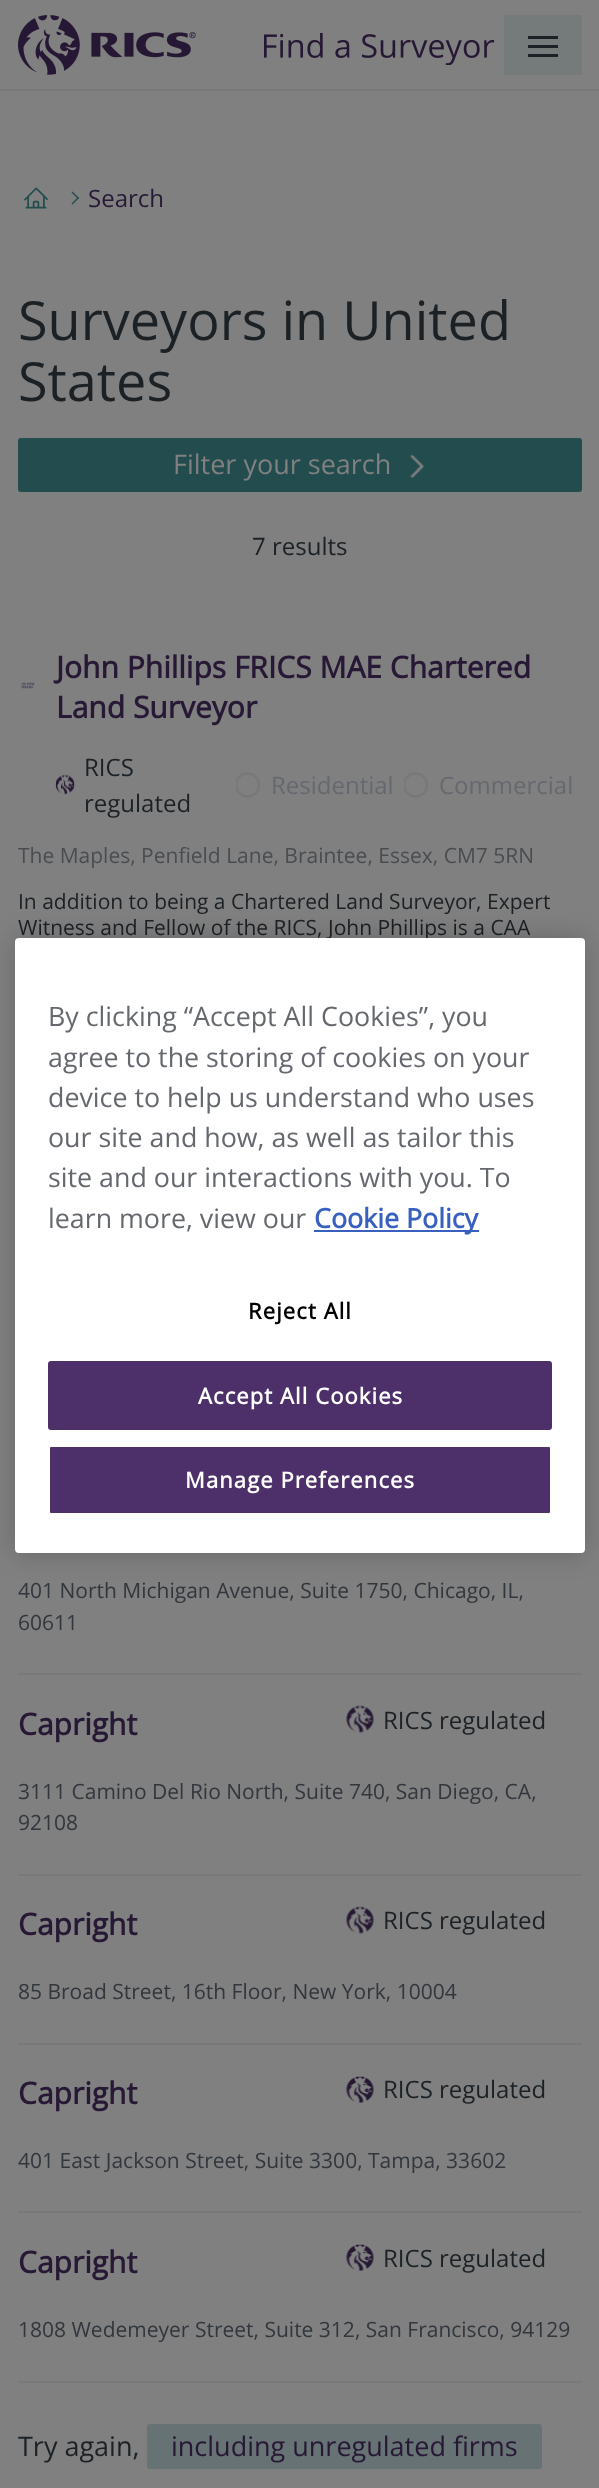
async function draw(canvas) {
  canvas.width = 599
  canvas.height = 2488
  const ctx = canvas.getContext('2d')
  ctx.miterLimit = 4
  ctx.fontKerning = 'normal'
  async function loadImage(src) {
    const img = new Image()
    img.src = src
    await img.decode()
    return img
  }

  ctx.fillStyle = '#808080'
  ctx.fillRect(0, 0, 599, 2488)
  ctx.fillStyle = '#78797a'
  ctx.fillRect(0, 89, 599, 2)
  ctx.drawImage(await loadImage('image0.png'), 18, 15, 178, 60)
  ctx.drawImage(await loadImage('image1.png'), 264, 33, 231, 32)
  ctx.fillStyle = '#757a7b'
  ctx.beginPath()
  ctx.roundRect(504, 15, 78, 60, 1.5)
  ctx.fill()
  ctx.fillStyle = '#1b2125'
  ctx.fillRect(528, 36, 30, 3)
  ctx.fillRect(528, 45, 30, 3)
  ctx.fillRect(528, 54, 30, 3)
  ctx.drawImage(await loadImage('image2.png'), 24, 187, 24, 22)
  ctx.fillStyle = '#224c4e'
  ctx.beginPath()
  ctx.moveTo(71.5, 192.5)
  ctx.lineTo(72.5, 191.5)
  ctx.lineTo(79, 198)
  ctx.lineTo(78, 199)
  ctx.closePath()
  ctx.fill()
  ctx.beginPath()
  ctx.moveTo(71.5, 203.5)
  ctx.lineTo(78, 197)
  ctx.lineTo(79, 198)
  ctx.lineTo(72.5, 204.5)
  ctx.closePath()
  ctx.fill()
  ctx.font = '24px Open Sans'
  ctx.fillStyle = '#271835'
  ctx.fillText('Search', 88, 207)
  ctx.font = '54px Open Sans'
  ctx.fillStyle = '#1b2125'
  ctx.fillText('Surveyors in United', 18, 340)
  ctx.fillText('States', 18, 401)
  ctx.fillStyle = '#224c4e'
  ctx.beginPath()
  ctx.roundRect(18, 438, 564, 54, 3)
  ctx.fill()
  ctx.font = '27px Open Sans'
  ctx.fillStyle = '#808080'
  ctx.fillText('Filter your search', 173, 474)
  ctx.drawImage(await loadImage('image3.png'), 410, 454, 14, 25)
  ctx.font = '24px Open Sans'
  ctx.fillStyle = '#1b2125'
  ctx.fillText('7 results', 252, 555)
  ctx.drawImage(await loadImage('image4.png'), 21, 682, 14, 7)
  ctx.font = 'bold 30px Open Sans'
  ctx.fillStyle = '#271835'
  ctx.fillText('John Phillips FRICS MAE Chartered', 56, 678)
  ctx.fillText('Land Surveyor', 56, 718)
  ctx.drawImage(await loadImage('image5.png'), 55, 774, 20, 21)
  ctx.font = '24px Open Sans'
  ctx.fillStyle = '#1b2125'
  ctx.fillText('RICS', 84, 776)
  ctx.fillText('regulated', 84, 812)
  ctx.save()
  ctx.beginPath()
  ctx.rect(236, 771, 27, 27)
  ctx.clip()
  ctx.beginPath()
  ctx.arc(247.5, 785, 11.5, 0, 2 * Math.PI)
  ctx.strokeStyle = '#76787a'
  ctx.lineWidth = 2.3
  ctx.stroke()
  ctx.restore()
  ctx.fillStyle = '#65696e'
  ctx.fillText('Residential', 271, 794)
  ctx.save()
  ctx.beginPath()
  ctx.rect(404, 771, 27, 27)
  ctx.clip()
  ctx.beginPath()
  ctx.arc(415.5, 785, 11.5, 0, 2 * Math.PI)
  ctx.strokeStyle = '#76787a'
  ctx.lineWidth = 2.3
  ctx.stroke()
  ctx.restore()
  ctx.fillText('Commercial', 439, 794)
  ctx.font = '21px Open Sans'
  ctx.fillStyle = '#494d51'
  ctx.fillText('The Maples, Penfield Lane, Braintee, Essex, CM7 5RN', 18, 863)
  ctx.fillStyle = '#1b2125'
  ctx.fillText('In addition to being a Chartered Land Surveyor, Expert', 18, 909)
  ctx.fillText('Witness and Fellow of the RICS, John Phillips is a CAA', 18, 935)
  ctx.fillStyle = '#78797a'
  ctx.fillRect(18, 1673, 564, 2)
  ctx.fillStyle = '#32373d'
  ctx.fillText('401 North Michigan Avenue, Suite 1750, Chicago, IL,', 18, 1598)
  ctx.fillText('60611', 18, 1630)
  ctx.fillStyle = '#78797a'
  ctx.fillRect(18, 1874, 564, 2)
  ctx.font = 'bold 30px Open Sans'
  ctx.fillStyle = '#271835'
  ctx.fillText('Capright', 18, 1735)
  ctx.drawImage(await loadImage('image6.png'), 346, 1705, 28, 28)
  ctx.font = '24px Open Sans'
  ctx.fillStyle = '#1b2125'
  ctx.fillText('RICS regulated', 383, 1729)
  ctx.font = '21px Open Sans'
  ctx.fillStyle = '#32373d'
  ctx.fillText('3111 Camino Del Rio North, Suite 740, San Diego, CA,', 18, 1799)
  ctx.fillText('92108', 18, 1830)
  ctx.fillStyle = '#78797a'
  ctx.fillRect(18, 2043, 564, 2)
  ctx.font = 'bold 30px Open Sans'
  ctx.fillStyle = '#271835'
  ctx.fillText('Capright', 18, 1935)
  ctx.drawImage(await loadImage('image6.png'), 346, 1906, 28, 28)
  ctx.font = '24px Open Sans'
  ctx.fillStyle = '#1b2125'
  ctx.fillText('RICS regulated', 383, 1929)
  ctx.font = '21px Open Sans'
  ctx.fillStyle = '#32373d'
  ctx.fillText('85 Broad Street, 16th Floor, New York, 10004', 18, 1999)
  ctx.fillStyle = '#78797a'
  ctx.fillRect(18, 2211, 564, 2)
  ctx.font = 'bold 30px Open Sans'
  ctx.fillStyle = '#271835'
  ctx.fillText('Capright', 18, 2104)
  ctx.drawImage(await loadImage('image7.png'), 346, 2076, 28, 27)
  ctx.font = '24px Open Sans'
  ctx.fillStyle = '#1b2125'
  ctx.fillText('RICS regulated', 383, 2098)
  ctx.font = '21px Open Sans'
  ctx.fillStyle = '#32373d'
  ctx.fillText('401 East Jackson Street, Suite 3300, Tampa, 33602', 18, 2168)
  ctx.fillStyle = '#78797a'
  ctx.fillRect(18, 2381, 564, 2)
  ctx.font = 'bold 30px Open Sans'
  ctx.fillStyle = '#271835'
  ctx.fillText('Capright', 18, 2273)
  ctx.drawImage(await loadImage('image7.png'), 346, 2244, 28, 27)
  ctx.font = '24px Open Sans'
  ctx.fillStyle = '#1b2125'
  ctx.fillText('RICS regulated', 383, 2267)
  ctx.font = '21px Open Sans'
  ctx.fillStyle = '#32373d'
  ctx.fillText('1808 Wedemeyer Street, Suite 312, San Francisco, 94129', 18, 2337)
  ctx.font = '27px Open Sans'
  ctx.fillStyle = '#1b2125'
  ctx.fillText('Try again,', 18, 2456)
  ctx.fillStyle = '#667273'
  ctx.beginPath()
  ctx.roundRect(147, 2424, 395, 45, 3)
  ctx.fill()
  ctx.fillStyle = '#271835'
  ctx.fillText('including unregulated firms', 171, 2456)
  ctx.fillStyle = '#00000033'
  ctx.filter = 'blur(13.5px)'
  ctx.beginPath()
  ctx.roundRect(15, 938, 570, 615, 4)
  ctx.fill()
  ctx.filter = 'none'
  ctx.fillStyle = '#fff'
  ctx.beginPath()
  ctx.roundRect(15, 938, 570, 615, 4)
  ctx.fill()
  ctx.font = '26.8px Open Sans'
  ctx.fillStyle = '#65696e'
  ctx.fillText('By clicking “Accept All Cookies”, you', 48, 1026)
  ctx.fillText('agree to the storing of cookies on your', 48, 1067)
  ctx.fillText('device to help us understand who uses', 48, 1107)
  ctx.fillText('our site and how, as well as tailor this', 48, 1147)
  ctx.fillText('site and our interactions with you. To', 48, 1187)
  ctx.fillText('learn more, view our', 48, 1228)
  ctx.fillStyle = '#3860be'
  ctx.fillRect(314, 1230, 165, 2)
  ctx.font = 'bold 26.8px Open Sans'
  ctx.fillText('Cookie Policy', 314, 1228)
  ctx.letterSpacing = '1.1px'
  ctx.font = 'bold 22px Open Sans'
  ctx.fillStyle = '#000'
  ctx.fillText('Reject All', 248, 1319)
  ctx.fillStyle = '#4d3069'
  ctx.beginPath()
  ctx.roundRect(49, 1362, 502, 67, 2)
  ctx.fill()
  ctx.strokeStyle = '#4d3069'
  ctx.lineWidth = 2
  ctx.stroke()
  ctx.fillStyle = '#fff'
  ctx.fillText('Accept All Cookies', 198, 1404)
  ctx.fillStyle = '#4d3069'
  ctx.beginPath()
  ctx.roundRect(49, 1446, 502, 68, 2)
  ctx.fill()
  ctx.strokeStyle = '#fff'
  ctx.stroke()
  ctx.fillStyle = '#fff'
  ctx.fillText('Manage Preferences', 185, 1488)
}

draw(document.querySelector('canvas'))
